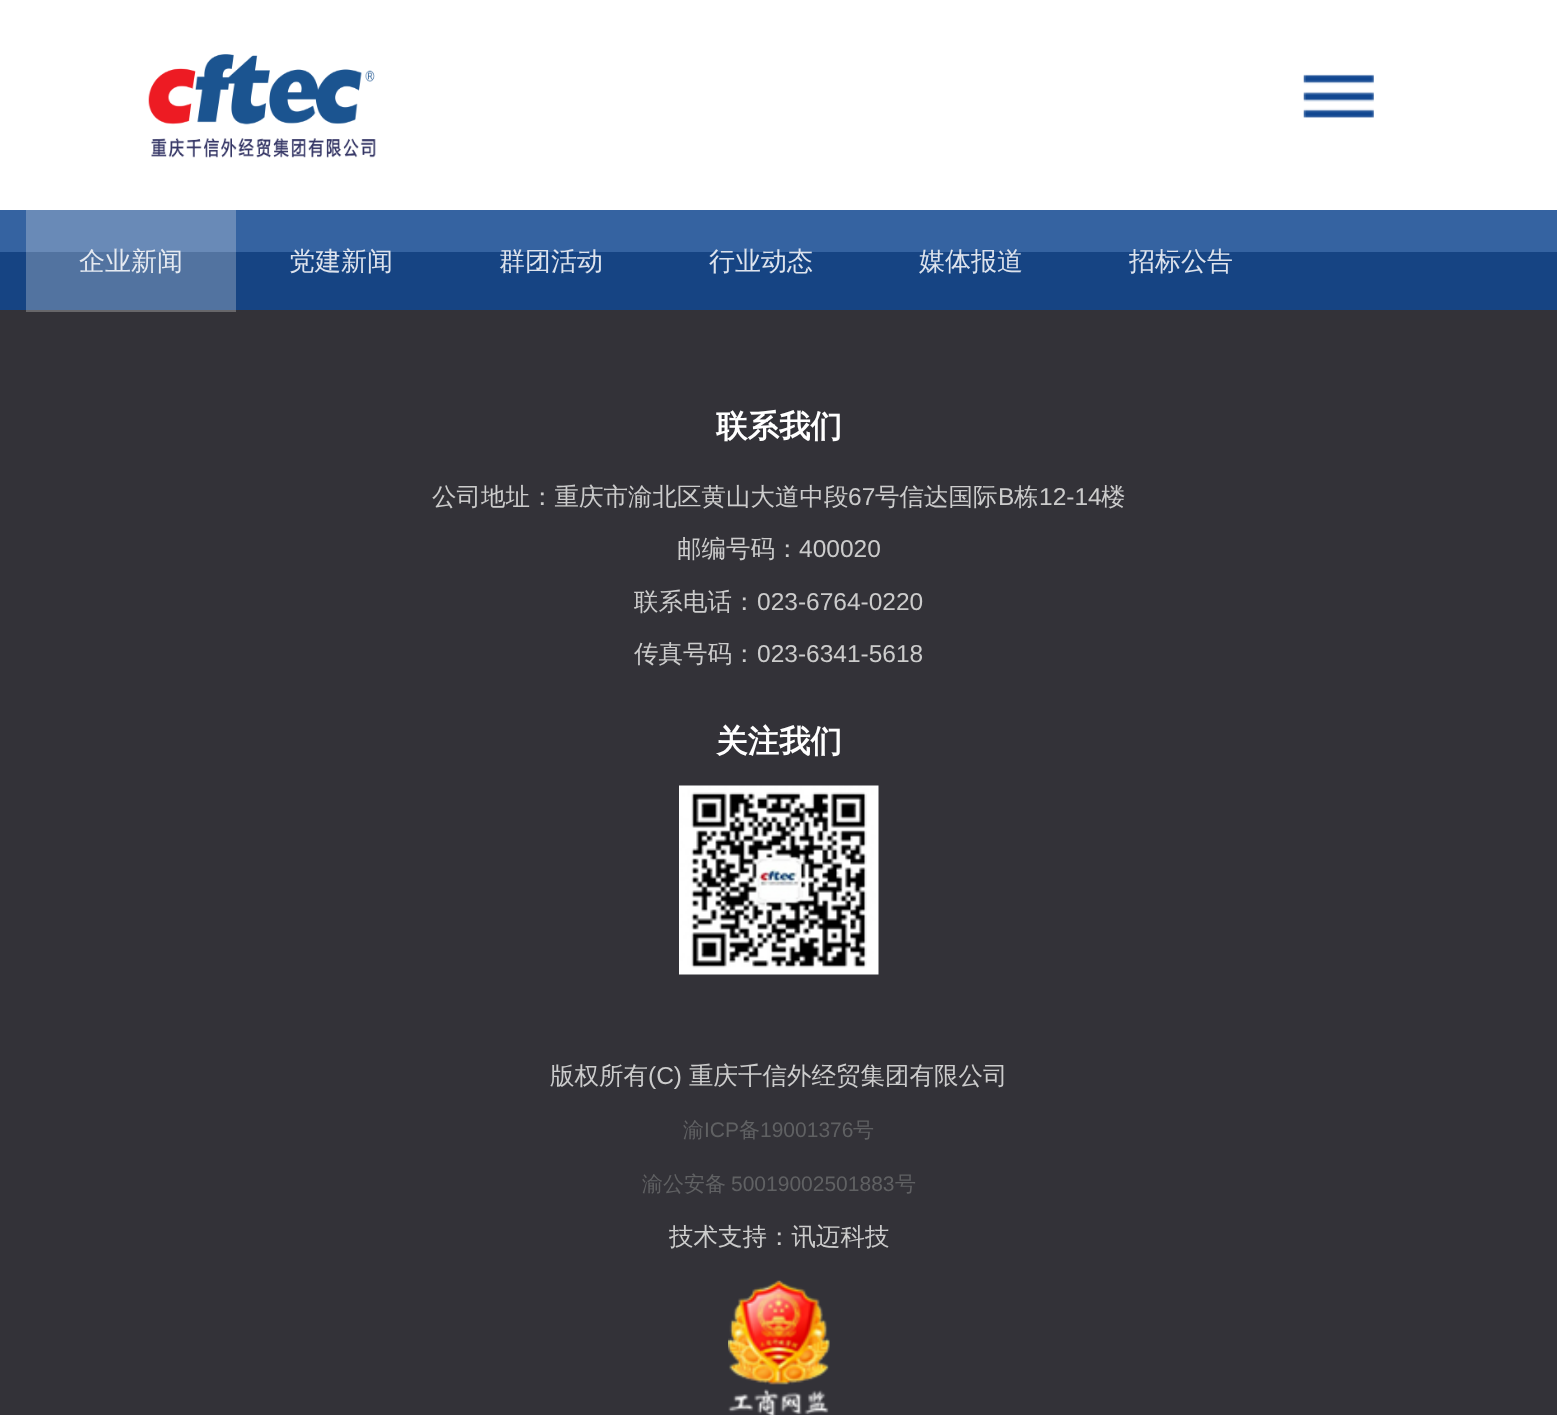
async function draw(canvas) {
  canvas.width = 1557
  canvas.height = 1415
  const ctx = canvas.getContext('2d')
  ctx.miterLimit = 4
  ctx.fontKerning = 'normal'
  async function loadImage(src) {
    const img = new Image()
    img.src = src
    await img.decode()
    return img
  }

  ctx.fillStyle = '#3563a1'
  ctx.fillRect(0, 0, 1557, 1415)
  ctx.fillStyle = '#698ab7'
  ctx.fillRect(26, 210, 210, 42)
  ctx.fillStyle = '#fff'
  ctx.fillRect(0, 0, 1557, 210)
  ctx.drawImage(await loadImage('image0.png'), 148, 54, 228, 104)
  ctx.drawImage(await loadImage('image1.png'), 1303, 74, 71, 44)
  ctx.fillStyle = '#164483'
  ctx.fillRect(0, 252, 1557, 58)
  ctx.fillStyle = '#5273a0'
  ctx.fillRect(26, 252, 210, 58)
  ctx.font = '500 26px WenQuanYi Zen Hei'
  ctx.fillStyle = '#e5eaf1'
  ctx.fillText('企业新闻', 79, 270)
  ctx.fillStyle = '#dde3ed'
  ctx.fillText('党建新闻', 289, 270)
  ctx.fillText('群团活动', 499, 270)
  ctx.fillText('行业动态', 709, 270)
  ctx.fillText('媒体报道', 919, 270)
  ctx.fillText('招标公告', 1129, 270)
  ctx.fillStyle = '#333238'
  ctx.fillRect(0, 310, 1557, 1105)
  ctx.fillStyle = '#676669'
  ctx.fillRect(26, 310, 210, 2)
  ctx.font = 'bold 31.5px WenQuanYi Zen Hei'
  ctx.fillStyle = '#fff'
  ctx.fillText('联系我们', 716, 437)
  ctx.font = '500 24.5px WenQuanYi Zen Hei'
  ctx.fillStyle = '#ccc'
  ctx.fillText('公司地址：重庆市渝北区黄山大道中段', 432, 505)
  ctx.font = '24.5px Liberation Sans'
  ctx.fillText('67', 848, 505)
  ctx.font = '500 24.5px WenQuanYi Zen Hei'
  ctx.fillText('号信达国际', 875, 505)
  ctx.font = '24.5px Liberation Sans'
  ctx.fillText('B', 998, 505)
  ctx.font = '500 24.5px WenQuanYi Zen Hei'
  ctx.fillText('栋', 1014, 505)
  ctx.font = '24.5px Liberation Sans'
  ctx.fillText('12-14', 1039, 505)
  ctx.font = '500 24.5px WenQuanYi Zen Hei'
  ctx.fillText('楼', 1101, 505)
  ctx.fillText('邮编号码：', 677, 557)
  ctx.font = '24.5px Liberation Sans'
  ctx.fillText('400020', 799, 557)
  ctx.font = '500 24.5px WenQuanYi Zen Hei'
  ctx.fillText('联系电话：', 634, 610)
  ctx.font = '24.5px Liberation Sans'
  ctx.fillText('023-6764-0220', 757, 610)
  ctx.font = '500 24.5px WenQuanYi Zen Hei'
  ctx.fillText('传真号码：', 634, 662)
  ctx.font = '24.5px Liberation Sans'
  ctx.fillText('023-6341-5618', 757, 662)
  ctx.font = 'bold 31.5px WenQuanYi Zen Hei'
  ctx.fillStyle = '#fff'
  ctx.fillText('关注我们', 716, 752)
  ctx.drawImage(await loadImage('image2.png'), 679, 785, 200, 190)
  ctx.font = '500 24.5px WenQuanYi Zen Hei'
  ctx.fillStyle = '#ccc'
  ctx.fillText('版权所有', 550, 1084)
  ctx.font = '24.5px Liberation Sans'
  ctx.fillText('(C)', 648, 1084)
  ctx.font = '500 24.5px WenQuanYi Zen Hei'
  ctx.fillText('重庆千信外经贸集团有限公司', 689, 1084)
  ctx.font = '500 21px WenQuanYi Zen Hei'
  ctx.fillStyle = '#606163'
  ctx.fillText('渝', 683, 1137)
  ctx.font = '21px Liberation Sans'
  ctx.fillText('ICP', 704, 1137)
  ctx.font = '500 21px WenQuanYi Zen Hei'
  ctx.fillText('备', 739, 1137)
  ctx.font = '21px Liberation Sans'
  ctx.fillText('19001376', 760, 1137)
  ctx.font = '500 21px WenQuanYi Zen Hei'
  ctx.fillText('号', 853, 1137)
  ctx.fillText('渝公安备', 642, 1191)
  ctx.font = '21px Liberation Sans'
  ctx.fillText('50019002501883', 731, 1191)
  ctx.font = '500 21px WenQuanYi Zen Hei'
  ctx.fillText('号', 895, 1191)
  ctx.font = '500 24.5px WenQuanYi Zen Hei'
  ctx.fillStyle = '#ccc'
  ctx.fillText('技术支持：讯迈科技', 669, 1245)
  ctx.drawImage(await loadImage('image3.png'), 728, 1280, 102, 135)
}

draw(document.querySelector('canvas'))
